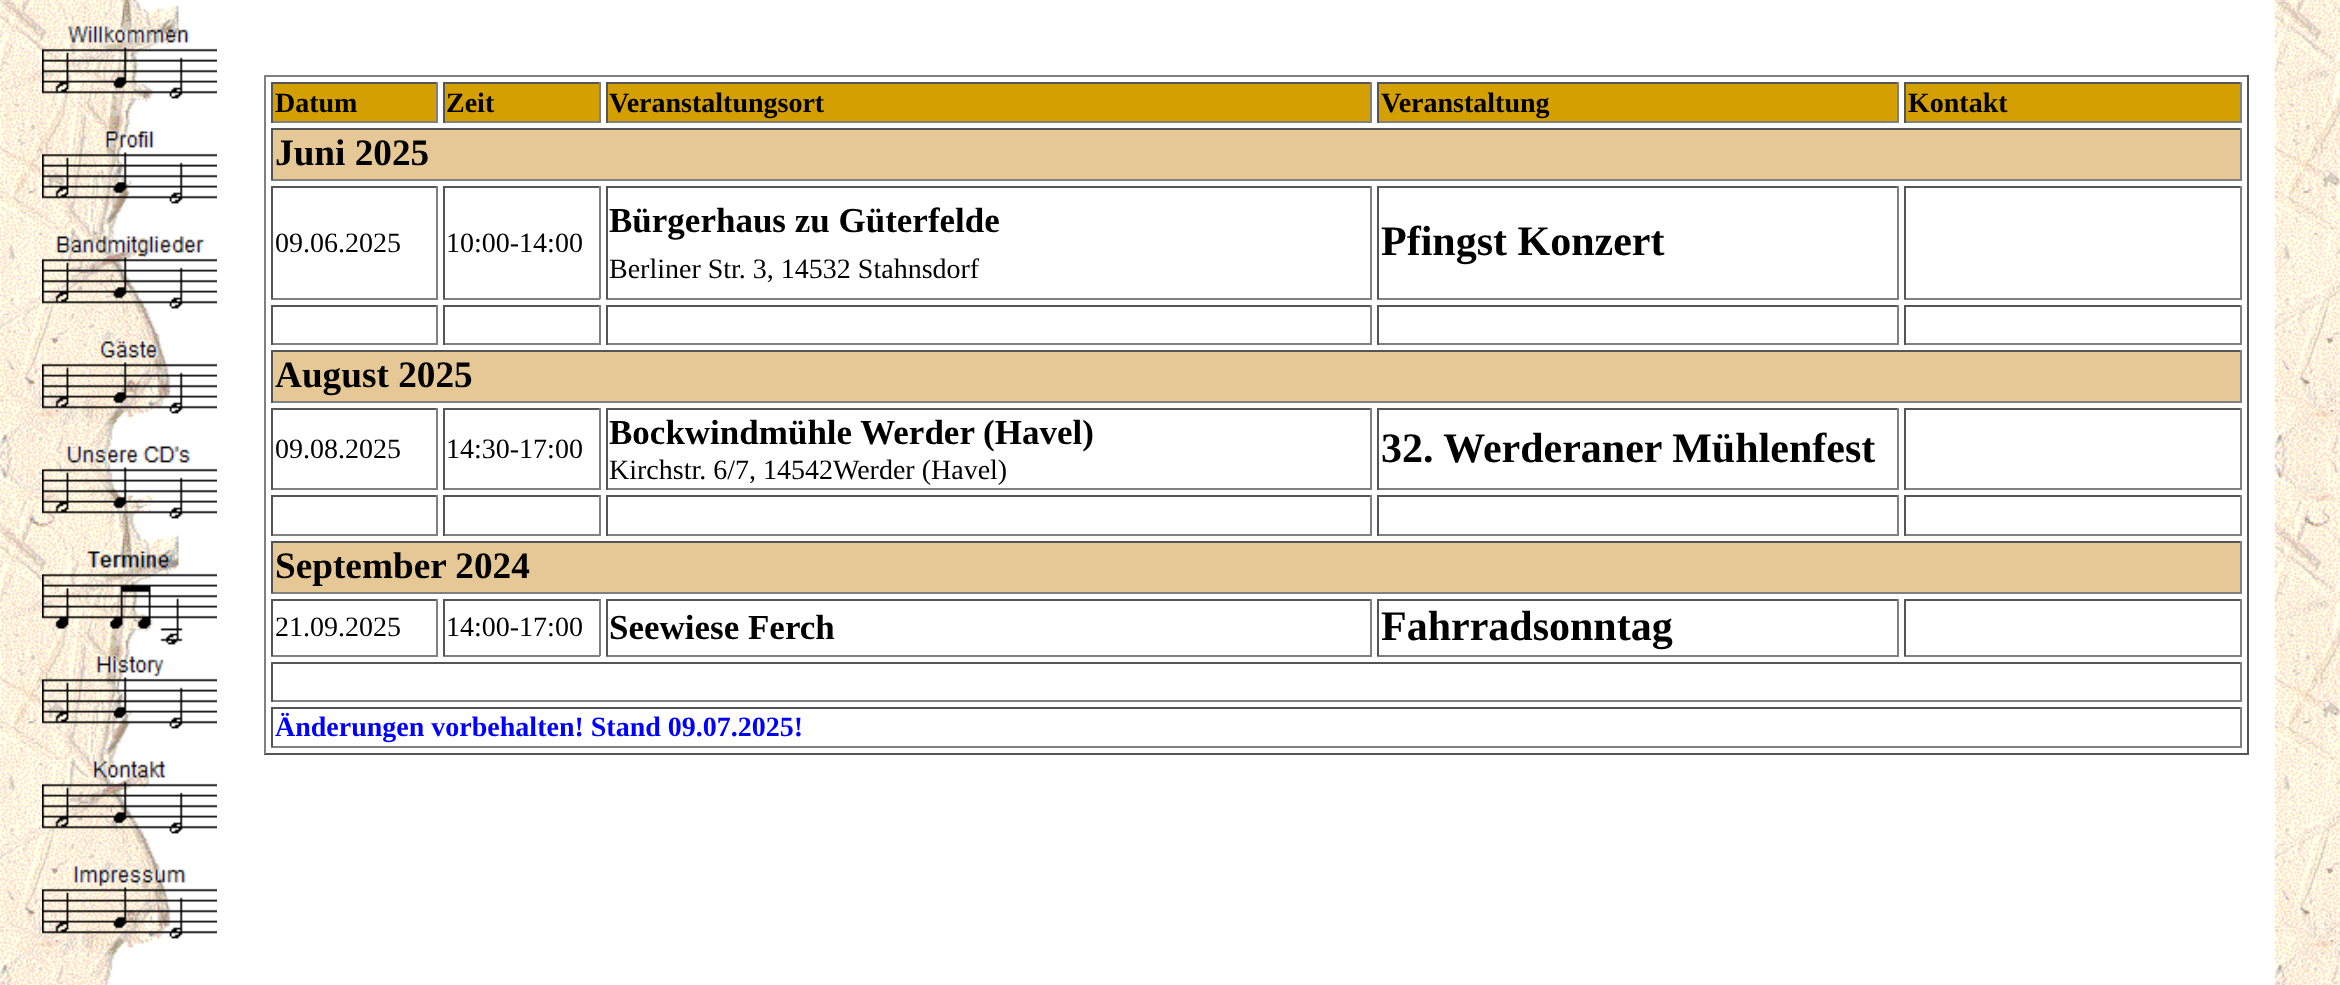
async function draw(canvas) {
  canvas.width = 2340
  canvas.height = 985
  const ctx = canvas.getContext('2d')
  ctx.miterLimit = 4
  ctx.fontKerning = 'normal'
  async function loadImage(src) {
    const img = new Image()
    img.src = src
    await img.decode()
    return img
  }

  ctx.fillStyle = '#fff'
  ctx.fillRect(0, 0, 2340, 985)
  ctx.drawImage(await loadImage('image0.png'), 0, 0, 2340, 985)
  ctx.drawImage(await loadImage('image1.png'), 42, 26, 175, 73)
  ctx.drawImage(await loadImage('image2.png'), 42, 131, 175, 73)
  ctx.drawImage(await loadImage('image3.png'), 42, 236, 175, 73)
  ctx.drawImage(await loadImage('image4.png'), 42, 341, 175, 73)
  ctx.drawImage(await loadImage('image5.png'), 42, 446, 175, 73)
  ctx.drawImage(await loadImage('image6.png'), 42, 551, 175, 94)
  ctx.drawImage(await loadImage('image7.png'), 42, 656, 175, 73)
  ctx.drawImage(await loadImage('image8.png'), 42, 761, 175, 73)
  ctx.drawImage(await loadImage('image9.png'), 42, 866, 175, 73)
  ctx.fillStyle = '#808080'
  ctx.fillRect(264, 75, 1985, 2)
  ctx.fillStyle = '#555'
  ctx.fillRect(2247, 75, 2, 679)
  ctx.fillRect(264, 753, 1985, 2)
  ctx.fillStyle = '#808080'
  ctx.fillRect(264, 75, 2, 679)
  ctx.fillStyle = '#d49f00'
  ctx.fillRect(273, 84, 163, 37)
  ctx.fillStyle = '#555'
  ctx.fillRect(271, 82, 167, 2)
  ctx.fillStyle = '#808080'
  ctx.fillRect(436, 82, 2, 41)
  ctx.fillRect(271, 121, 167, 2)
  ctx.fillStyle = '#555'
  ctx.fillRect(271, 82, 2, 41)
  ctx.font = 'bold 28px Liberation Serif'
  ctx.fillStyle = '#000'
  ctx.fillText('Datum', 275, 112)
  ctx.fillStyle = '#d49f00'
  ctx.fillRect(445, 84, 154, 37)
  ctx.fillStyle = '#555'
  ctx.fillRect(443, 82, 157, 2)
  ctx.fillStyle = '#808080'
  ctx.fillRect(599, 82, 2, 41)
  ctx.fillRect(443, 121, 157, 2)
  ctx.fillStyle = '#555'
  ctx.fillRect(443, 82, 2, 41)
  ctx.fillStyle = '#000'
  ctx.fillText('Zeit', 446, 112)
  ctx.fillStyle = '#d49f00'
  ctx.fillRect(608, 84, 762, 37)
  ctx.fillStyle = '#555'
  ctx.fillRect(606, 82, 766, 2)
  ctx.fillStyle = '#808080'
  ctx.fillRect(1370, 82, 2, 41)
  ctx.fillRect(606, 121, 766, 2)
  ctx.fillStyle = '#555'
  ctx.fillRect(606, 82, 2, 41)
  ctx.fillStyle = '#000'
  ctx.fillText('Veranstaltungsort', 609, 112)
  ctx.fillStyle = '#d49f00'
  ctx.fillRect(1379, 84, 518, 37)
  ctx.fillStyle = '#555'
  ctx.fillRect(1377, 82, 522, 2)
  ctx.fillStyle = '#808080'
  ctx.fillRect(1897, 82, 2, 41)
  ctx.fillRect(1377, 121, 522, 2)
  ctx.fillStyle = '#555'
  ctx.fillRect(1377, 82, 2, 41)
  ctx.fillStyle = '#000'
  ctx.fillText('Veranstaltung', 1381, 112)
  ctx.fillStyle = '#d49f00'
  ctx.fillRect(1906, 84, 334, 37)
  ctx.fillStyle = '#555'
  ctx.fillRect(1904, 82, 338, 2)
  ctx.fillStyle = '#808080'
  ctx.fillRect(2240, 82, 2, 41)
  ctx.fillRect(1904, 121, 338, 2)
  ctx.fillStyle = '#555'
  ctx.fillRect(1904, 82, 2, 41)
  ctx.fillStyle = '#000'
  ctx.fillText('Kontakt', 1908, 112)
  ctx.fillStyle = '#e6c896'
  ctx.fillRect(273, 130, 1967, 49)
  ctx.fillStyle = '#555'
  ctx.fillRect(271, 128, 1971, 2)
  ctx.fillStyle = '#808080'
  ctx.fillRect(2240, 128, 2, 52)
  ctx.fillRect(271, 179, 1971, 2)
  ctx.fillStyle = '#555'
  ctx.fillRect(271, 128, 2, 52)
  ctx.font = 'bold 37.25px Liberation Serif'
  ctx.fillStyle = '#000'
  ctx.fillText('Juni 2025', 275, 165)
  ctx.fillStyle = '#555'
  ctx.fillRect(271, 186, 167, 2)
  ctx.fillStyle = '#808080'
  ctx.fillRect(436, 186, 2, 113)
  ctx.fillRect(271, 298, 167, 2)
  ctx.fillStyle = '#555'
  ctx.fillRect(271, 186, 2, 113)
  ctx.font = '28px Liberation Serif'
  ctx.fillStyle = '#000'
  ctx.fillText('09.06.2025', 275, 252)
  ctx.fillStyle = '#555'
  ctx.fillRect(443, 186, 157, 2)
  ctx.fillStyle = '#808080'
  ctx.fillRect(599, 186, 2, 113)
  ctx.fillRect(443, 298, 157, 2)
  ctx.fillStyle = '#555'
  ctx.fillRect(443, 186, 2, 113)
  ctx.fillStyle = '#000'
  ctx.fillText('10:00-14:00', 446, 252)
  ctx.fillStyle = '#555'
  ctx.fillRect(606, 186, 766, 2)
  ctx.fillStyle = '#808080'
  ctx.fillRect(1370, 186, 2, 113)
  ctx.fillRect(606, 298, 766, 2)
  ctx.fillStyle = '#555'
  ctx.fillRect(606, 186, 2, 113)
  ctx.font = 'bold 35px Liberation Serif'
  ctx.fillStyle = '#000'
  ctx.fillText('Bürgerhaus zu Güterfelde', 609, 232)
  ctx.font = '28px Liberation Serif'
  ctx.fillText('Berliner Str. 3, 14532 Stahnsdorf', 609, 278)
  ctx.fillStyle = '#555'
  ctx.fillRect(1377, 186, 522, 2)
  ctx.fillStyle = '#808080'
  ctx.fillRect(1897, 186, 2, 113)
  ctx.fillRect(1377, 298, 522, 2)
  ctx.fillStyle = '#555'
  ctx.fillRect(1377, 186, 2, 113)
  ctx.font = 'bold 42px Liberation Serif'
  ctx.fillStyle = '#000'
  ctx.fillText('Pfingst Konzert', 1381, 255)
  ctx.fillStyle = '#555'
  ctx.fillRect(1904, 186, 338, 2)
  ctx.fillStyle = '#808080'
  ctx.fillRect(2240, 186, 2, 113)
  ctx.fillRect(1904, 298, 338, 2)
  ctx.fillStyle = '#555'
  ctx.fillRect(1904, 186, 2, 113)
  ctx.fillRect(271, 305, 167, 2)
  ctx.fillStyle = '#808080'
  ctx.fillRect(436, 305, 2, 40)
  ctx.fillRect(271, 343, 167, 2)
  ctx.fillStyle = '#555'
  ctx.fillRect(271, 305, 2, 40)
  ctx.fillRect(443, 305, 157, 2)
  ctx.fillStyle = '#808080'
  ctx.fillRect(599, 305, 2, 40)
  ctx.fillRect(443, 343, 157, 2)
  ctx.fillStyle = '#555'
  ctx.fillRect(443, 305, 2, 40)
  ctx.fillRect(606, 305, 766, 2)
  ctx.fillStyle = '#808080'
  ctx.fillRect(1370, 305, 2, 40)
  ctx.fillRect(606, 343, 766, 2)
  ctx.fillStyle = '#555'
  ctx.fillRect(606, 305, 2, 40)
  ctx.fillRect(1377, 305, 522, 2)
  ctx.fillStyle = '#808080'
  ctx.fillRect(1897, 305, 2, 40)
  ctx.fillRect(1377, 343, 522, 2)
  ctx.fillStyle = '#555'
  ctx.fillRect(1377, 305, 2, 40)
  ctx.fillRect(1904, 305, 338, 2)
  ctx.fillStyle = '#808080'
  ctx.fillRect(2240, 305, 2, 40)
  ctx.fillRect(1904, 343, 338, 2)
  ctx.fillStyle = '#555'
  ctx.fillRect(1904, 305, 2, 40)
  ctx.fillStyle = '#e6c896'
  ctx.fillRect(273, 352, 1967, 49)
  ctx.fillStyle = '#555'
  ctx.fillRect(271, 350, 1971, 2)
  ctx.fillStyle = '#808080'
  ctx.fillRect(2240, 350, 2, 53)
  ctx.fillRect(271, 401, 1971, 2)
  ctx.fillStyle = '#555'
  ctx.fillRect(271, 350, 2, 53)
  ctx.font = 'bold 37.25px Liberation Serif'
  ctx.fillStyle = '#000'
  ctx.fillText('August 2025', 275, 387)
  ctx.fillStyle = '#555'
  ctx.fillRect(271, 408, 167, 2)
  ctx.fillStyle = '#808080'
  ctx.fillRect(436, 408, 2, 82)
  ctx.fillRect(271, 488, 167, 2)
  ctx.fillStyle = '#555'
  ctx.fillRect(271, 408, 2, 82)
  ctx.font = '28px Liberation Serif'
  ctx.fillStyle = '#000'
  ctx.fillText('09.08.2025', 275, 458)
  ctx.fillStyle = '#555'
  ctx.fillRect(443, 408, 157, 2)
  ctx.fillStyle = '#808080'
  ctx.fillRect(599, 408, 2, 82)
  ctx.fillRect(443, 488, 157, 2)
  ctx.fillStyle = '#555'
  ctx.fillRect(443, 408, 2, 82)
  ctx.fillStyle = '#000'
  ctx.fillText('14:30-17:00', 446, 458)
  ctx.fillStyle = '#555'
  ctx.fillRect(606, 408, 766, 2)
  ctx.fillStyle = '#808080'
  ctx.fillRect(1370, 408, 2, 82)
  ctx.fillRect(606, 488, 766, 2)
  ctx.fillStyle = '#555'
  ctx.fillRect(606, 408, 2, 82)
  ctx.font = 'bold 35px Liberation Serif'
  ctx.fillStyle = '#000'
  ctx.fillText('Bockwindmühle Werder (Havel)', 609, 444)
  ctx.font = '28px Liberation Serif'
  ctx.fillText('Kirchstr. 6/7, 14542Werder (Havel)', 609, 479)
  ctx.fillStyle = '#555'
  ctx.fillRect(1377, 408, 522, 2)
  ctx.fillStyle = '#808080'
  ctx.fillRect(1897, 408, 2, 82)
  ctx.fillRect(1377, 488, 522, 2)
  ctx.fillStyle = '#555'
  ctx.fillRect(1377, 408, 2, 82)
  ctx.font = 'bold 42px Liberation Serif'
  ctx.fillStyle = '#000'
  ctx.fillText('32. Werderaner Mühlenfest', 1381, 462)
  ctx.fillStyle = '#555'
  ctx.fillRect(1904, 408, 338, 2)
  ctx.fillStyle = '#808080'
  ctx.fillRect(2240, 408, 2, 82)
  ctx.fillRect(1904, 488, 338, 2)
  ctx.fillStyle = '#555'
  ctx.fillRect(1904, 408, 2, 82)
  ctx.fillRect(271, 495, 167, 2)
  ctx.fillStyle = '#808080'
  ctx.fillRect(436, 495, 2, 41)
  ctx.fillRect(271, 534, 167, 2)
  ctx.fillStyle = '#555'
  ctx.fillRect(271, 495, 2, 41)
  ctx.fillRect(443, 495, 157, 2)
  ctx.fillStyle = '#808080'
  ctx.fillRect(599, 495, 2, 41)
  ctx.fillRect(443, 534, 157, 2)
  ctx.fillStyle = '#555'
  ctx.fillRect(443, 495, 2, 41)
  ctx.fillRect(606, 495, 766, 2)
  ctx.fillStyle = '#808080'
  ctx.fillRect(1370, 495, 2, 41)
  ctx.fillRect(606, 534, 766, 2)
  ctx.fillStyle = '#555'
  ctx.fillRect(606, 495, 2, 41)
  ctx.fillRect(1377, 495, 522, 2)
  ctx.fillStyle = '#808080'
  ctx.fillRect(1897, 495, 2, 41)
  ctx.fillRect(1377, 534, 522, 2)
  ctx.fillStyle = '#555'
  ctx.fillRect(1377, 495, 2, 41)
  ctx.fillRect(1904, 495, 338, 2)
  ctx.fillStyle = '#808080'
  ctx.fillRect(2240, 495, 2, 41)
  ctx.fillRect(1904, 534, 338, 2)
  ctx.fillStyle = '#555'
  ctx.fillRect(1904, 495, 2, 41)
  ctx.fillStyle = '#e6c896'
  ctx.fillRect(273, 543, 1967, 49)
  ctx.fillStyle = '#555'
  ctx.fillRect(271, 541, 1971, 2)
  ctx.fillStyle = '#808080'
  ctx.fillRect(2240, 541, 2, 52)
  ctx.fillRect(271, 592, 1971, 2)
  ctx.fillStyle = '#555'
  ctx.fillRect(271, 541, 2, 52)
  ctx.font = 'bold 37.25px Liberation Serif'
  ctx.fillStyle = '#000'
  ctx.fillText('September 2024', 275, 578)
  ctx.fillStyle = '#555'
  ctx.fillRect(271, 599, 167, 2)
  ctx.fillStyle = '#808080'
  ctx.fillRect(436, 599, 2, 57)
  ctx.fillRect(271, 655, 167, 2)
  ctx.fillStyle = '#555'
  ctx.fillRect(271, 599, 2, 57)
  ctx.font = '28px Liberation Serif'
  ctx.fillStyle = '#000'
  ctx.fillText('21.09.2025', 275, 636)
  ctx.fillStyle = '#555'
  ctx.fillRect(443, 599, 157, 2)
  ctx.fillStyle = '#808080'
  ctx.fillRect(599, 599, 2, 57)
  ctx.fillRect(443, 655, 157, 2)
  ctx.fillStyle = '#555'
  ctx.fillRect(443, 599, 2, 57)
  ctx.fillStyle = '#000'
  ctx.fillText('14:00-17:00', 446, 636)
  ctx.fillStyle = '#555'
  ctx.fillRect(606, 599, 766, 2)
  ctx.fillStyle = '#808080'
  ctx.fillRect(1370, 599, 2, 57)
  ctx.fillRect(606, 655, 766, 2)
  ctx.fillStyle = '#555'
  ctx.fillRect(606, 599, 2, 57)
  ctx.font = 'bold 35px Liberation Serif'
  ctx.fillStyle = '#000'
  ctx.fillText('Seewiese Ferch', 609, 639)
  ctx.fillStyle = '#555'
  ctx.fillRect(1377, 599, 522, 2)
  ctx.fillStyle = '#808080'
  ctx.fillRect(1897, 599, 2, 57)
  ctx.fillRect(1377, 655, 522, 2)
  ctx.fillStyle = '#555'
  ctx.fillRect(1377, 599, 2, 57)
  ctx.font = 'bold 42px Liberation Serif'
  ctx.fillStyle = '#000'
  ctx.fillText('Fahrradsonntag', 1381, 640)
  ctx.fillStyle = '#555'
  ctx.fillRect(1904, 599, 338, 2)
  ctx.fillStyle = '#808080'
  ctx.fillRect(2240, 599, 2, 57)
  ctx.fillRect(1904, 655, 338, 2)
  ctx.fillStyle = '#555'
  ctx.fillRect(1904, 599, 2, 57)
  ctx.fillRect(271, 662, 1971, 2)
  ctx.fillStyle = '#808080'
  ctx.fillRect(2240, 662, 2, 40)
  ctx.fillRect(271, 700, 1971, 2)
  ctx.fillStyle = '#555'
  ctx.fillRect(271, 662, 2, 40)
  ctx.fillRect(271, 707, 1971, 2)
  ctx.fillStyle = '#808080'
  ctx.fillRect(2240, 707, 2, 40)
  ctx.fillRect(271, 746, 1971, 2)
  ctx.fillStyle = '#555'
  ctx.fillRect(271, 707, 2, 40)
  ctx.font = 'bold 28px Liberation Serif'
  ctx.fillStyle = '#00f'
  ctx.fillText('Änderungen vorbehalten! Stand 09.07.2025!', 275, 736)
}

draw(document.querySelector('canvas'))
